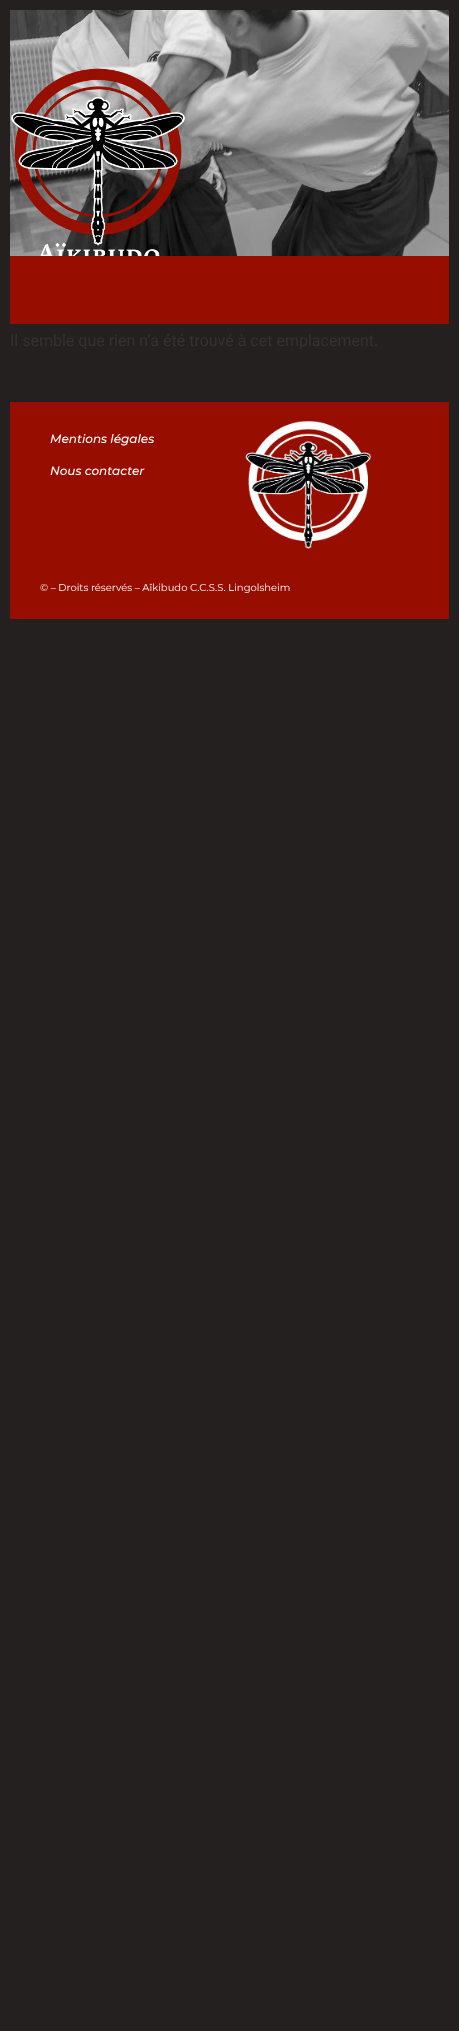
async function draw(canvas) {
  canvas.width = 459
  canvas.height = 2031
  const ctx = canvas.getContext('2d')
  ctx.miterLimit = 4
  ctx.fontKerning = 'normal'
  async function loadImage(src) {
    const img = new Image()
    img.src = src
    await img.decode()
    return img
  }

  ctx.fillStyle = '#242020'
  ctx.fillRect(0, 0, 459, 2031)
  ctx.drawImage(await loadImage('image0.png'), 10, 10, 439, 246)
  ctx.drawImage(await loadImage('image1.png'), 11, 68, 174, 188)
  ctx.fillStyle = '#970e00'
  ctx.fillRect(10, 256, 439, 68)
  ctx.font = '16px Roboto'
  ctx.fillStyle = '#333'
  ctx.fillText('Il semble que rien n’a été trouvé à cet emplacement.', 10, 346)
  ctx.fillStyle = '#970e00'
  ctx.fillRect(10, 402, 439, 217)
  ctx.font = 'italic 500 12px Montserrat'
  ctx.fillStyle = '#fff'
  ctx.fillText('Mentions légales', 50, 443)
  ctx.fillText('Nous contacter', 50, 475)
  ctx.drawImage(await loadImage('image2.png'), 245, 420, 127, 129)
  ctx.font = '10px Montserrat'
  ctx.fillText('© – Droits réservés – Aîkibudo C.C.S.S. Lingolsheim', 40, 591)
}

draw(document.querySelector('canvas'))
